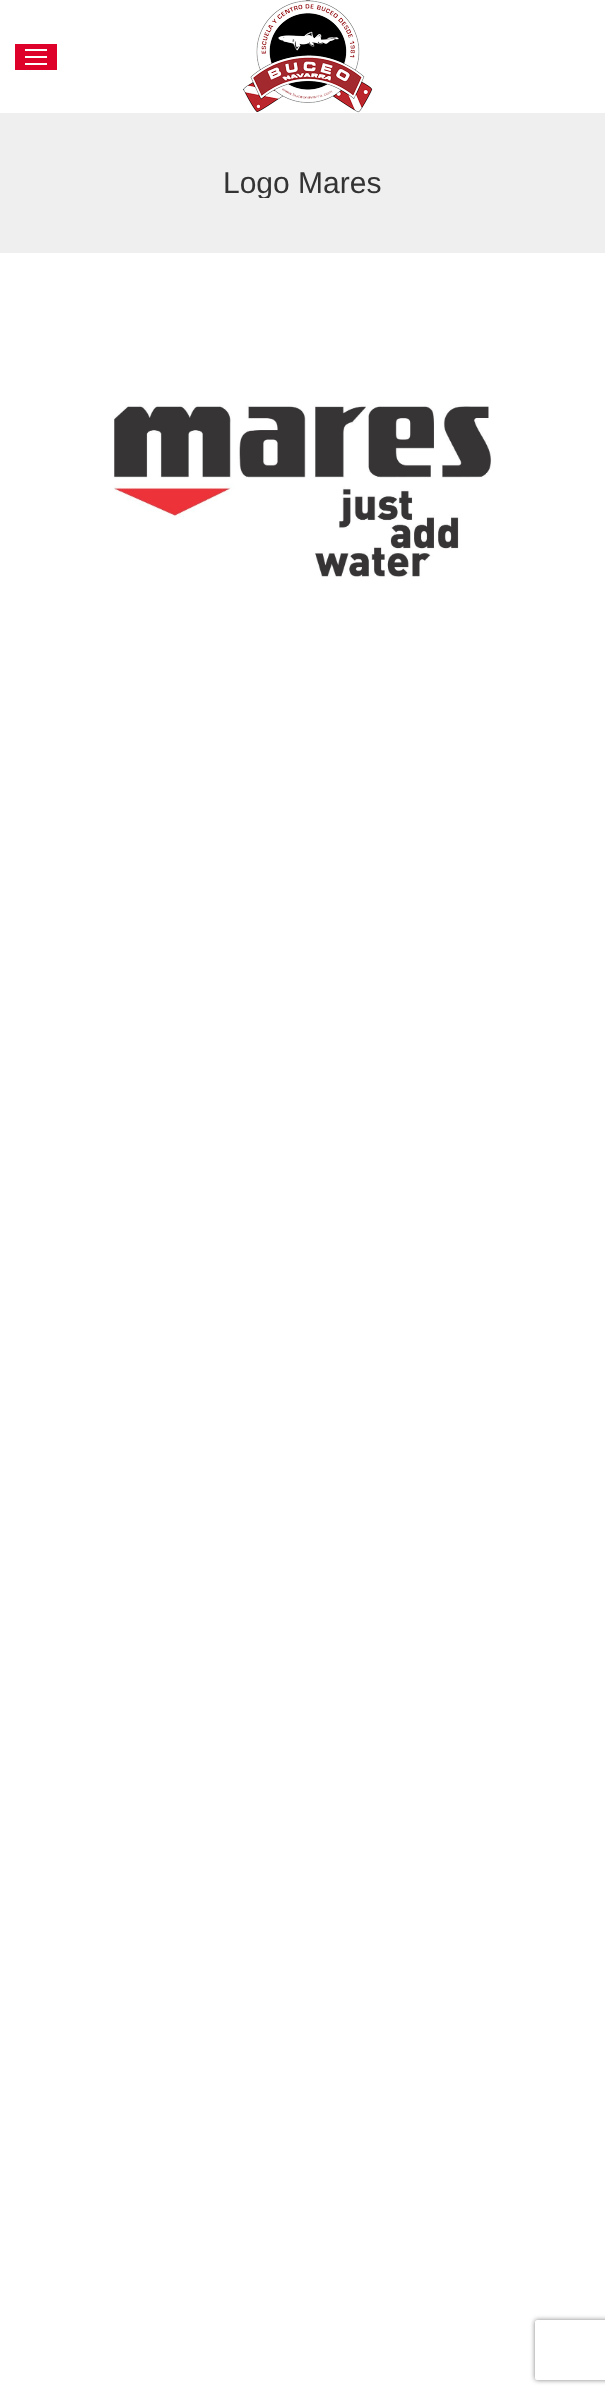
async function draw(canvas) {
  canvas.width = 605
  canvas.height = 2394
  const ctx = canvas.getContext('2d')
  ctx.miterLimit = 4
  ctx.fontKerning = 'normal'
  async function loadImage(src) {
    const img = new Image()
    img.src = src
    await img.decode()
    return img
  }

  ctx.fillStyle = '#fff'
  ctx.fillRect(0, 0, 605, 2394)
  ctx.fillStyle = '#de0129'
  ctx.fillRect(15, 44, 42, 26)
  ctx.fillStyle = '#fff'
  ctx.fillRect(25, 49, 22, 2)
  ctx.fillRect(25, 56, 22, 2)
  ctx.fillRect(25, 63, 22, 2)
  ctx.drawImage(await loadImage('image0.png'), 243, 0, 130, 113)
  ctx.fillStyle = '#efefef'
  ctx.fillRect(0, 113, 605, 140)
  ctx.save()
  ctx.beginPath()
  ctx.rect(223, 168, 159, 30)
  ctx.clip()
  ctx.font = '30px Liberation Sans'
  ctx.fillStyle = '#333'
  ctx.fillText('Logo Mares', 223, 193)
  ctx.restore()
  ctx.drawImage(await loadImage('image1.png'), 113, 405, 379, 172)
  ctx.save()
  ctx.beginPath()
  ctx.moveTo(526, 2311)
  ctx.lineTo(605, 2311)
  ctx.lineTo(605, 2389)
  ctx.lineTo(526, 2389)
  ctx.closePath()
  ctx.moveTo(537, 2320)
  ctx.lineTo(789, 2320)
  ctx.bezierCurveTo(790, 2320, 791, 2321, 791, 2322)
  ctx.lineTo(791, 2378)
  ctx.bezierCurveTo(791, 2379, 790, 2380, 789, 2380)
  ctx.lineTo(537, 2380)
  ctx.bezierCurveTo(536, 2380, 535, 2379, 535, 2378)
  ctx.lineTo(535, 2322)
  ctx.bezierCurveTo(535, 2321, 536, 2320, 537, 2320)
  ctx.closePath()
  ctx.clip('evenodd')
  ctx.fillStyle = '#808080'
  ctx.filter = 'blur(2.5px)'
  ctx.beginPath()
  ctx.roundRect(535, 2320, 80, 60, 2)
  ctx.fill()
  ctx.filter = 'none'
  ctx.restore()
}

draw(document.querySelector('canvas'))
